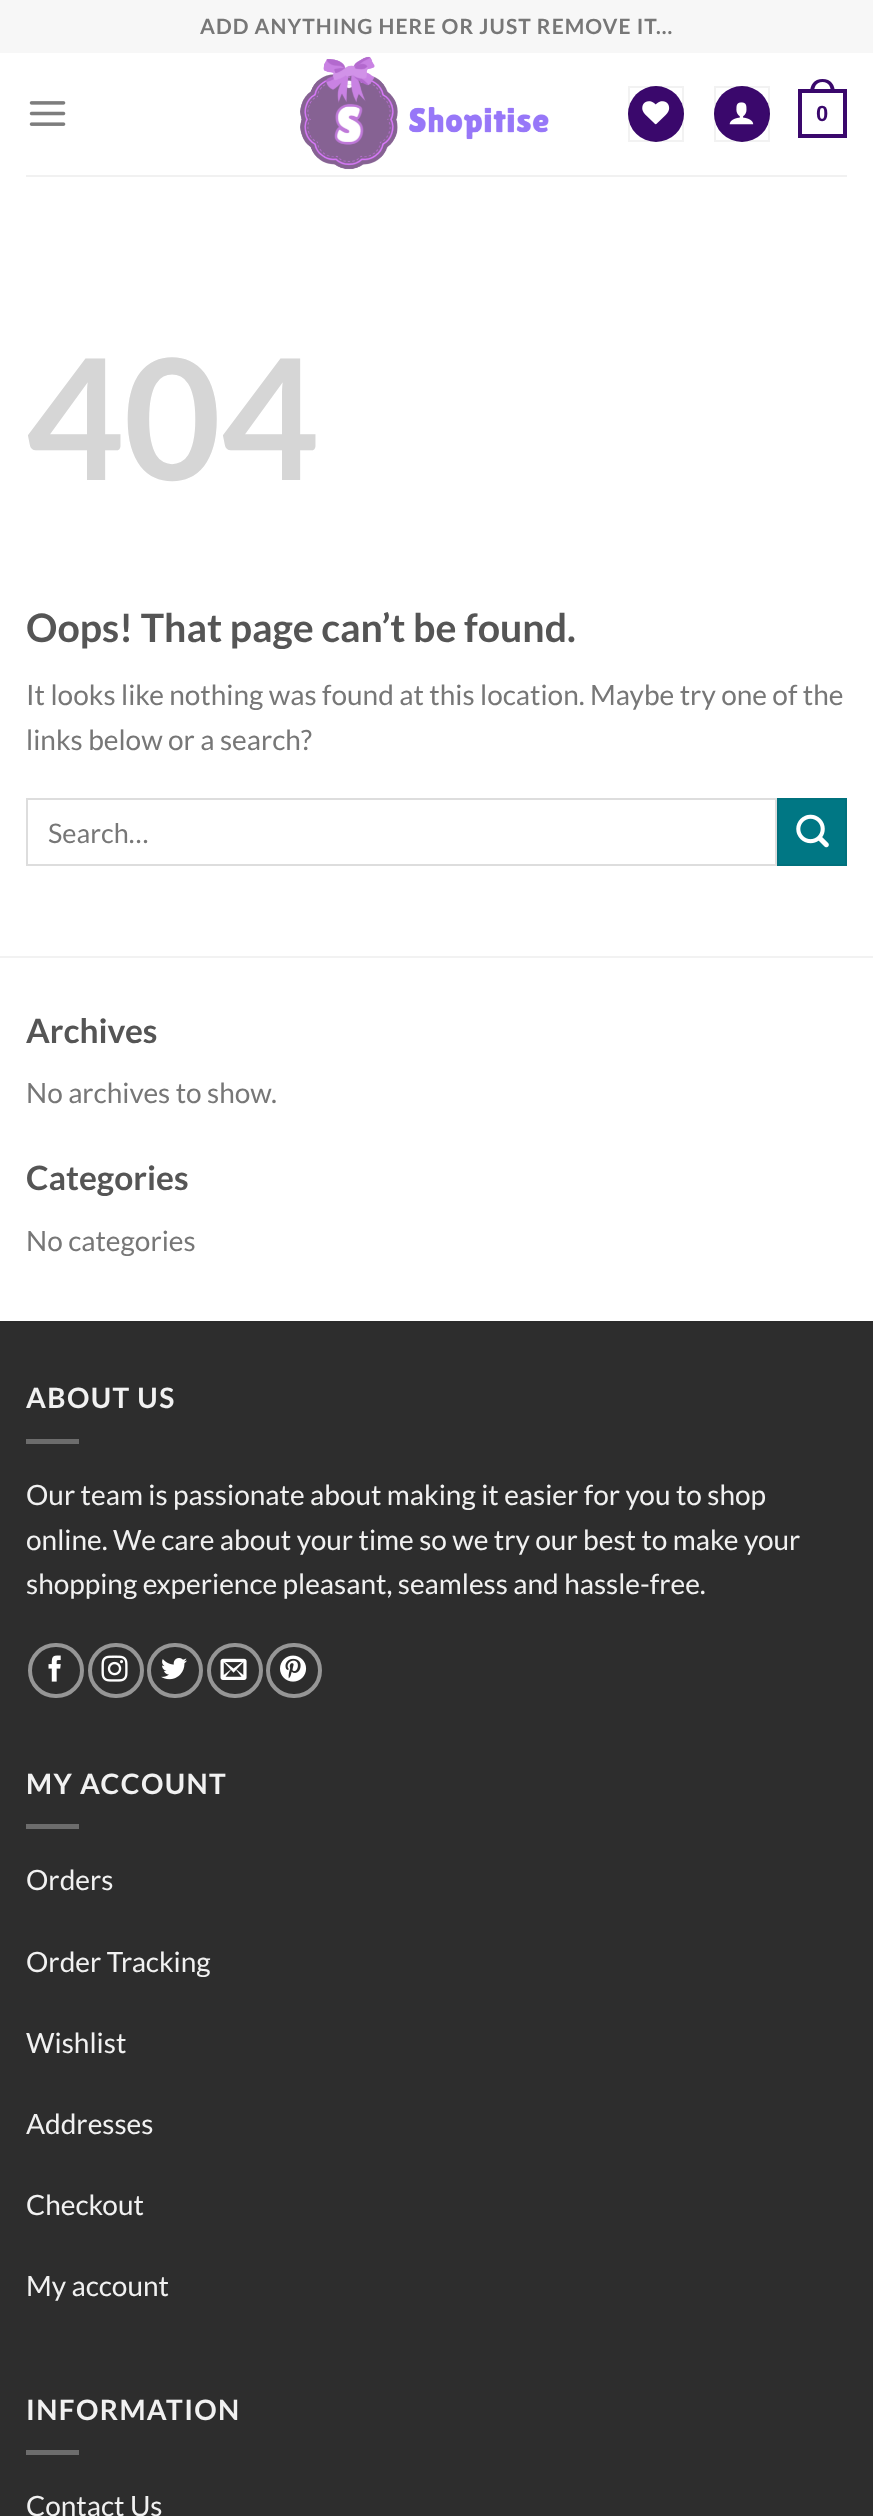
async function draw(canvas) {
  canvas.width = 873
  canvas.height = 2516
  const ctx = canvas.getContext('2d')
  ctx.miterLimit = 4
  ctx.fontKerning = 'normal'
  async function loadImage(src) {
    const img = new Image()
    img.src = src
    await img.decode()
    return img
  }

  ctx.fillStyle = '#fff'
  ctx.fillRect(0, 0, 873, 2516)
  ctx.fillStyle = '#f7f7f7'
  ctx.fillRect(0, 0, 873, 53)
  ctx.letterSpacing = '1.05px'
  ctx.font = 'bold 21px Lato'
  ctx.fillStyle = '#777'
  ctx.fillText('ADD ANYTHING HERE OR JUST REMOVE IT...', 200, 34)
  ctx.drawImage(await loadImage('image0.png'), 29, 101, 37, 25)
  ctx.drawImage(await loadImage('image1.png'), 300, 56, 249, 114)
  ctx.fillStyle = '#3a086c'
  ctx.beginPath()
  ctx.arc(656, 114, 28, 0, 2 * Math.PI)
  ctx.fill()
  ctx.strokeStyle = '#0000000d'
  ctx.lineWidth = 2
  ctx.strokeRect(629, 87, 54, 54)
  ctx.drawImage(await loadImage('image2.png'), 642, 101, 28, 24)
  ctx.beginPath()
  ctx.arc(742, 114, 28, 0, 2 * Math.PI)
  ctx.fill()
  ctx.strokeRect(715, 87, 54, 54)
  ctx.drawImage(await loadImage('image3.png'), 729, 102, 25, 23)
  ctx.strokeStyle = '#3a086c'
  ctx.lineWidth = 4
  ctx.strokeRect(800, 91, 45, 45)
  ctx.beginPath()
  ctx.moveTo(822.5, 79)
  ctx.bezierCurveTo(831, 79, 835, 85, 835, 93)
  ctx.lineTo(810, 93)
  ctx.bezierCurveTo(810, 85, 814, 79, 822.5, 79)
  ctx.closePath()
  ctx.moveTo(822.5, 82)
  ctx.bezierCurveTo(829, 82, 831, 87, 831, 93)
  ctx.lineTo(814, 93)
  ctx.bezierCurveTo(814, 87, 816, 82, 822.5, 82)
  ctx.closePath()
  ctx.fill('evenodd')
  ctx.letterSpacing = '0px'
  ctx.font = 'bold 22px Liberation Sans'
  ctx.fillText('0', 816, 121)
  ctx.fillStyle = '#f1f1f1'
  ctx.fillRect(26, 175, 821, 2)
  ctx.font = 'bold 168px Lato'
  ctx.fillStyle = '#d6d6d6'
  ctx.fillText('404', 26, 480)
  ctx.font = 'bold 39.25px Lato'
  ctx.fillStyle = '#555'
  ctx.fillText('Oops! That page can’t be found.', 26, 642)
  ctx.font = '28px Lato'
  ctx.fillStyle = '#777'
  ctx.fillText('It looks like nothing was found at this location. Maybe try one of the', 26, 705)
  ctx.fillText('links below or a search?', 26, 750)
  ctx.strokeStyle = '#ddd'
  ctx.lineWidth = 2
  ctx.strokeRect(27, 799, 749, 66)
  ctx.font = '27px Lato'
  ctx.fillText('Search…', 48, 843)
  ctx.fillStyle = '#007784'
  ctx.beginPath()
  ctx.rect(778, 799, 68, 66)
  ctx.fill()
  ctx.strokeStyle = '#00717d'
  ctx.stroke()
  ctx.drawImage(await loadImage('image4.png'), 796, 814, 33, 34)
  ctx.fillStyle = '#f2f2f2'
  ctx.fillRect(0, 956, 873, 2)
  ctx.font = 'bold 33.5px Lato'
  ctx.fillStyle = '#555'
  ctx.fillText('Archives', 26, 1043)
  ctx.font = '28px Lato'
  ctx.fillStyle = '#777'
  ctx.fillText('No archives to show.', 26, 1103)
  ctx.font = 'bold 33.5px Lato'
  ctx.fillStyle = '#555'
  ctx.fillText('Categories', 26, 1190)
  ctx.font = '28px Lato'
  ctx.fillStyle = '#777'
  ctx.fillText('No categories', 26, 1251)
  ctx.fillStyle = '#2d2d2d'
  ctx.fillRect(0, 1323, 873, 1193)
  ctx.fillStyle = '#2b2b2b'
  ctx.fillRect(0, 1321, 873, 2)
  ctx.letterSpacing = '1.4px'
  ctx.font = 'bold 28px Lato'
  ctx.fillStyle = '#f1f1f1'
  ctx.fillText('ABOUT US', 26, 1408)
  ctx.fillStyle = '#6c6c6c'
  ctx.fillRect(26, 1439, 53, 5)
  ctx.letterSpacing = '0px'
  ctx.font = '28px Lato'
  ctx.fillStyle = '#f1f1f1'
  ctx.fillText('Our team is passionate about making it easier for you to shop', 26, 1505)
  ctx.fillText('online. We care about your time so we try our best to make your', 26, 1550)
  ctx.fillText('shopping experience pleasant, seamless and hassle-free.', 26, 1594)
  ctx.beginPath()
  ctx.roundRect(30, 1645, 52, 51, 25.5)
  ctx.strokeStyle = '#969696'
  ctx.lineWidth = 4
  ctx.stroke()
  ctx.drawImage(await loadImage('image5.png'), 48, 1655, 13, 27)
  ctx.beginPath()
  ctx.roundRect(90, 1645, 52, 51, 25.5)
  ctx.stroke()
  ctx.drawImage(await loadImage('image6.png'), 101, 1655, 27, 27)
  ctx.beginPath()
  ctx.roundRect(149, 1645, 52, 51, 25.5)
  ctx.stroke()
  ctx.drawImage(await loadImage('image7.png'), 161, 1658, 26, 22)
  ctx.beginPath()
  ctx.roundRect(209, 1645, 52, 51, 25.5)
  ctx.stroke()
  ctx.drawImage(await loadImage('image8.png'), 220, 1658, 27, 22)
  ctx.beginPath()
  ctx.roundRect(268, 1645, 52, 51, 25.5)
  ctx.stroke()
  ctx.drawImage(await loadImage('image9.png'), 280, 1655, 27, 27)
  ctx.letterSpacing = '1.4px'
  ctx.font = 'bold 28px Lato'
  ctx.fillText('MY ACCOUNT', 26, 1794)
  ctx.fillStyle = '#6c6c6c'
  ctx.fillRect(26, 1824, 53, 5)
  ctx.letterSpacing = '0px'
  ctx.font = '28px Lato'
  ctx.fillStyle = '#f1f1f1'
  ctx.fillText('Orders', 26, 1890)
  ctx.fillText('Order Tracking', 26, 1972)
  ctx.fillText('Wishlist', 26, 2053)
  ctx.fillText('Addresses', 26, 2134)
  ctx.fillText('Checkout', 26, 2215)
  ctx.fillText('My account', 26, 2296)
  ctx.letterSpacing = '1.4px'
  ctx.font = 'bold 28px Lato'
  ctx.fillText('INFORMATION', 26, 2420)
  ctx.fillStyle = '#6c6c6c'
  ctx.fillRect(26, 2450, 53, 5)
  ctx.letterSpacing = '0px'
  ctx.font = '28px Lato'
  ctx.fillStyle = '#f1f1f1'
  ctx.fillText('Contact Us', 26, 2516)
}

draw(document.querySelector('canvas'))
